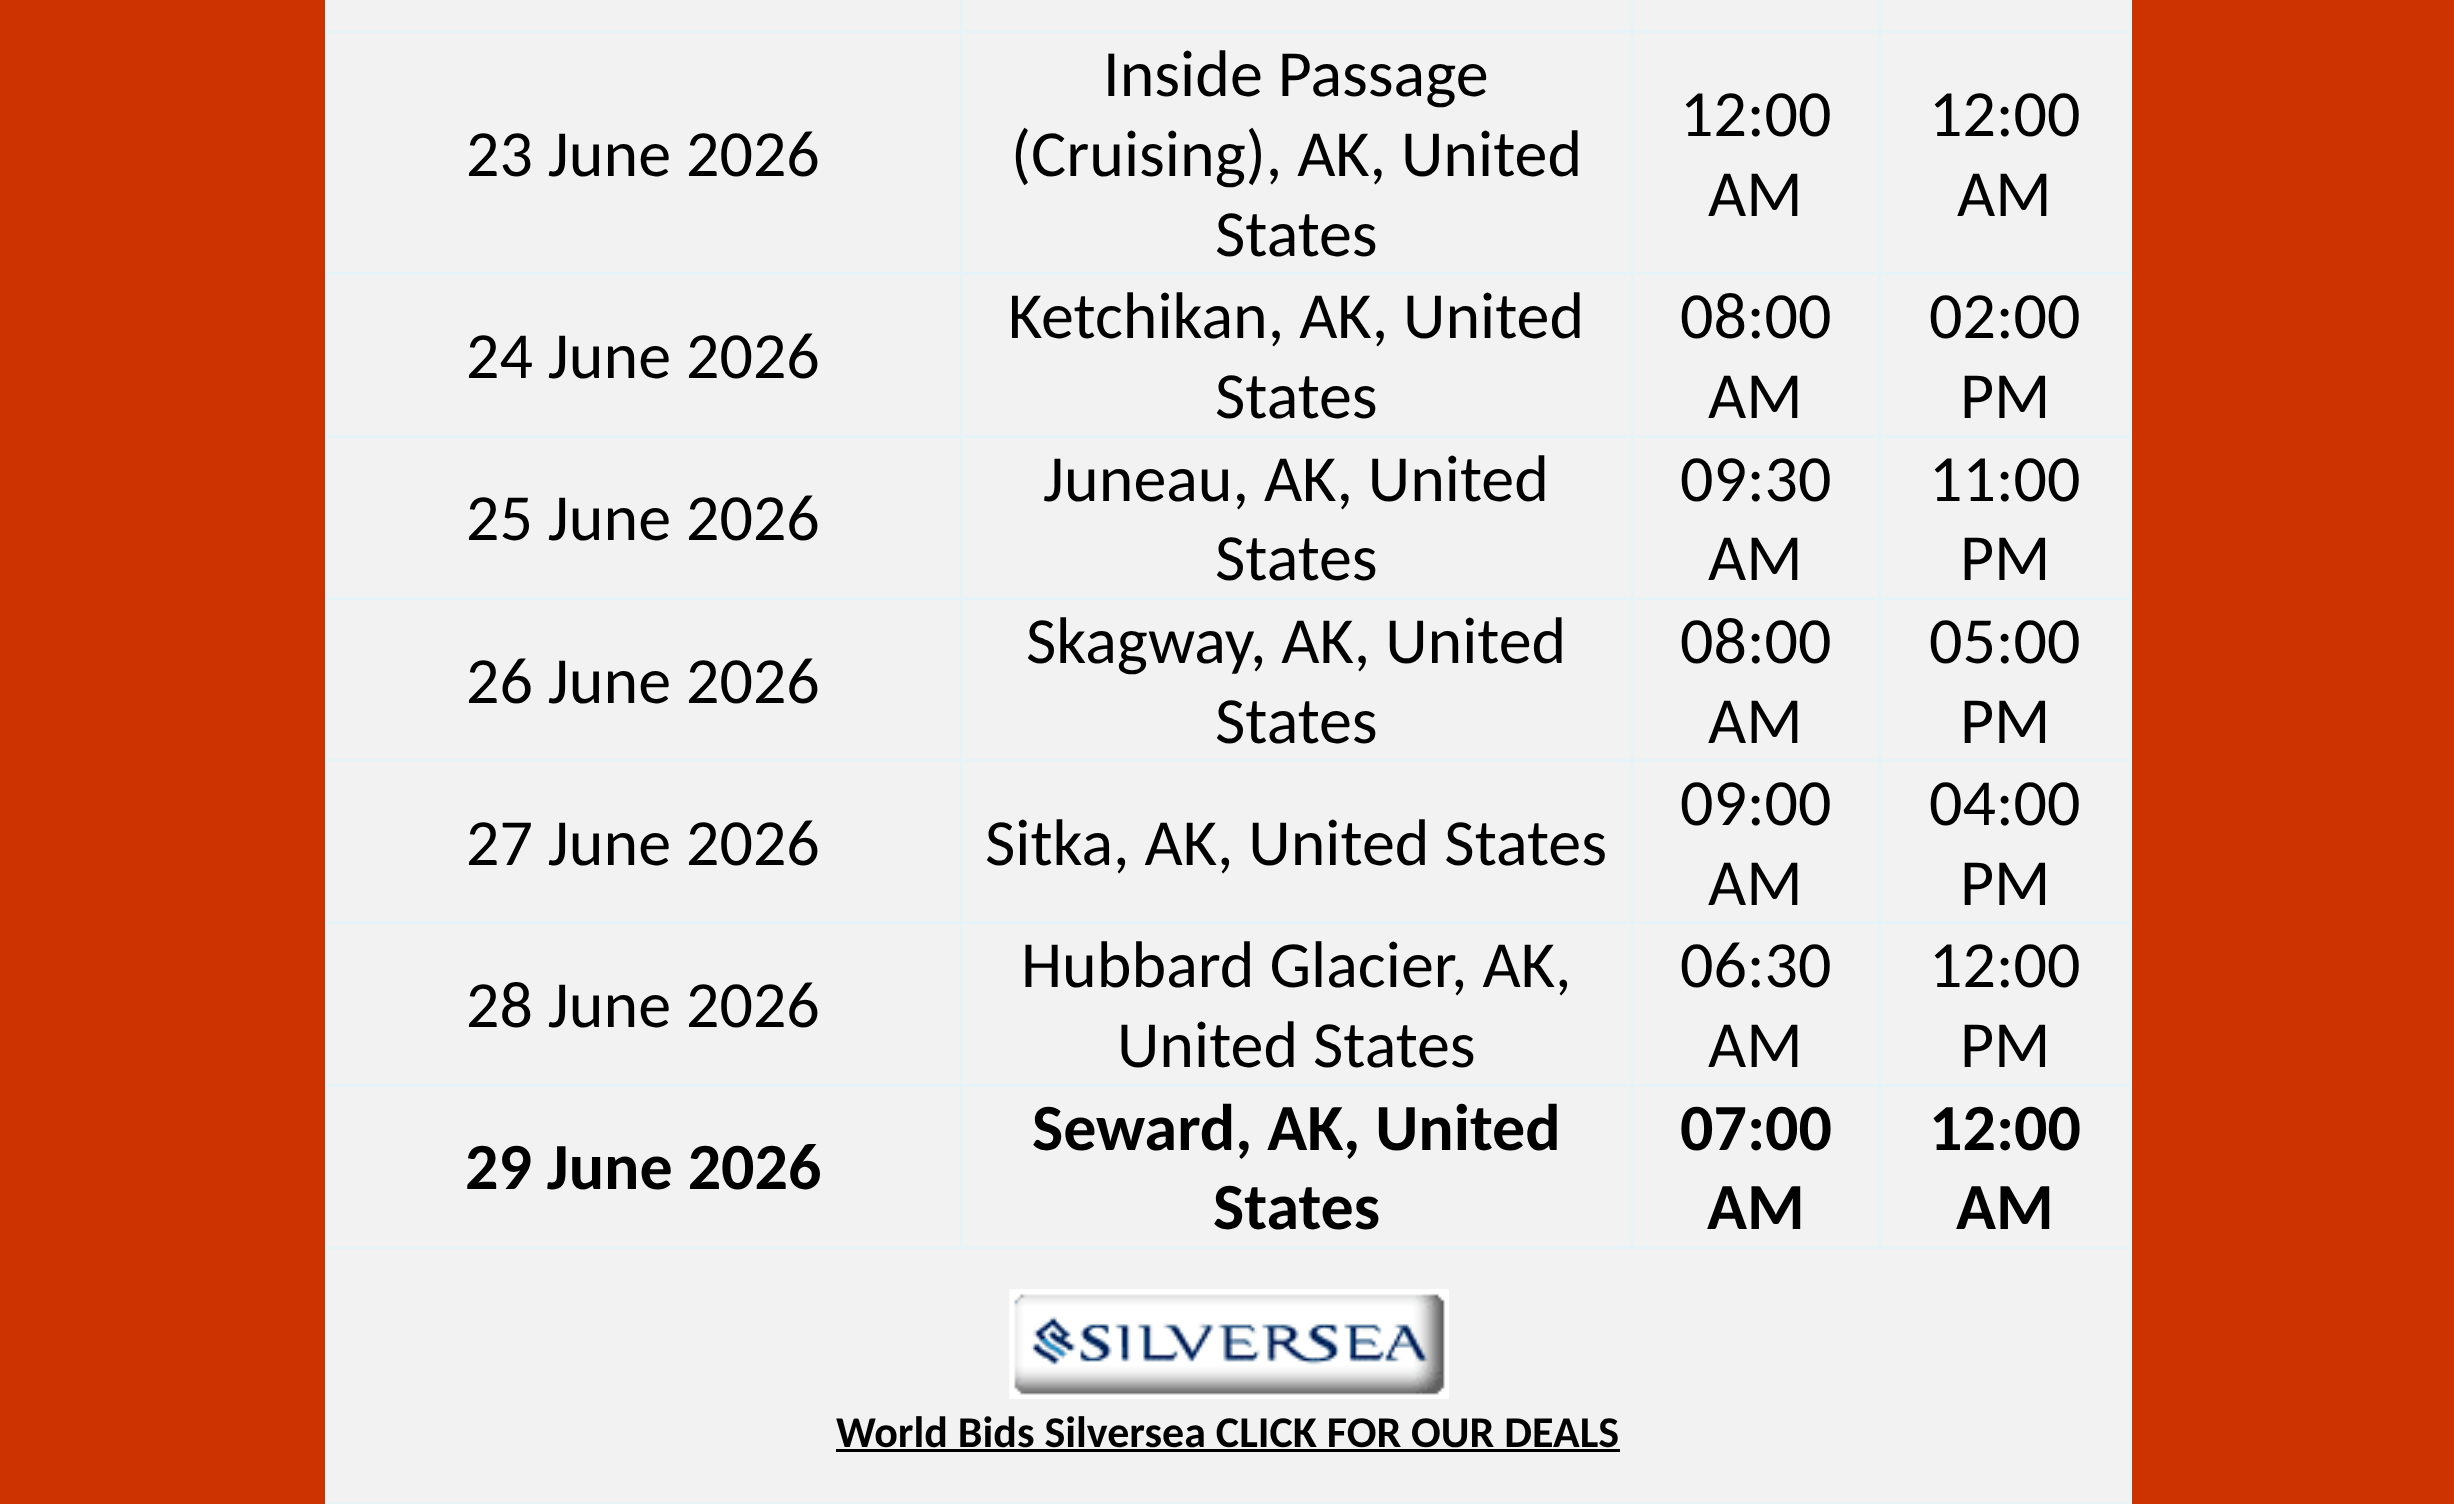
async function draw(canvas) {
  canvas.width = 2454
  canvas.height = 1504
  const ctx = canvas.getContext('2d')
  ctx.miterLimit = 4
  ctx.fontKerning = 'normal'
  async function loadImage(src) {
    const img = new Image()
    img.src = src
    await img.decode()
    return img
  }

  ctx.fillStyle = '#c30'
  ctx.fillRect(0, 0, 2454, 1504)
  ctx.fillStyle = '#f2f2f2'
  ctx.fillRect(328, 0, 1801, 1502)
  ctx.fillStyle = '#e6f3f7'
  ctx.fillRect(2129, 0, 3, 1504)
  ctx.fillRect(325, 1502, 1806, 2)
  ctx.fillRect(325, 0, 3, 1504)
  ctx.fillRect(1878, 30, 253, 3)
  ctx.fillRect(1878, 272, 253, 3)
  ctx.fillRect(1878, 435, 253, 3)
  ctx.fillRect(1878, 597, 253, 3)
  ctx.fillRect(1878, 759, 253, 3)
  ctx.fillRect(1878, 921, 253, 3)
  ctx.fillRect(1878, 1084, 253, 3)
  ctx.fillRect(325, 1246, 1806, 3)
  ctx.fillRect(1878, 1084, 3, 165)
  ctx.fillRect(1631, 1084, 250, 3)
  ctx.fillRect(1878, 921, 3, 165)
  ctx.fillRect(1631, 921, 250, 3)
  ctx.fillRect(1878, 759, 3, 165)
  ctx.fillRect(1631, 759, 250, 3)
  ctx.fillRect(1878, 597, 3, 165)
  ctx.fillRect(1631, 597, 250, 3)
  ctx.fillRect(1878, 435, 3, 165)
  ctx.fillRect(1631, 435, 250, 3)
  ctx.fillRect(1878, 272, 3, 165)
  ctx.fillRect(1631, 272, 250, 3)
  ctx.fillRect(1878, 30, 3, 245)
  ctx.fillRect(1631, 30, 250, 3)
  ctx.fillRect(1631, 1084, 3, 165)
  ctx.fillRect(960, 1084, 674, 3)
  ctx.fillRect(1631, 921, 3, 165)
  ctx.fillRect(960, 921, 674, 3)
  ctx.fillRect(1631, 759, 3, 165)
  ctx.fillRect(960, 759, 674, 3)
  ctx.fillRect(1631, 597, 3, 165)
  ctx.fillRect(960, 597, 674, 3)
  ctx.fillRect(1631, 435, 3, 165)
  ctx.fillRect(960, 435, 674, 3)
  ctx.fillRect(1631, 272, 3, 165)
  ctx.fillRect(960, 272, 674, 3)
  ctx.fillRect(1631, 30, 3, 245)
  ctx.fillRect(960, 30, 674, 3)
  ctx.fillRect(960, 1084, 3, 165)
  ctx.fillRect(325, 1084, 638, 3)
  ctx.fillRect(960, 921, 3, 165)
  ctx.fillRect(325, 921, 638, 3)
  ctx.fillRect(960, 759, 3, 165)
  ctx.fillRect(325, 759, 638, 3)
  ctx.fillRect(960, 597, 3, 165)
  ctx.fillRect(325, 597, 638, 3)
  ctx.fillRect(960, 435, 3, 165)
  ctx.fillRect(325, 435, 638, 3)
  ctx.fillRect(960, 272, 3, 165)
  ctx.fillRect(325, 272, 638, 3)
  ctx.fillRect(960, 30, 3, 245)
  ctx.fillRect(325, 30, 638, 3)
  ctx.fillRect(960, 0, 3, 33)
  ctx.fillRect(1631, 0, 3, 33)
  ctx.fillRect(1878, 0, 3, 33)
  ctx.font = '66px Carlito'
  ctx.fillStyle = '#000'
  ctx.fillText('23 June 2026', 466, 176)
  ctx.fillText('Inside Passage', 1103, 96)
  ctx.fillText('(Cruising), AK, United', 1011, 176)
  ctx.fillText('States', 1215, 256)
  ctx.fillText('12:00', 1680, 136)
  ctx.fillText('AM', 1708, 216)
  ctx.fillText('12:00', 1929, 136)
  ctx.fillText('AM', 1957, 216)
  ctx.fillText('24 June 2026', 466, 378)
  ctx.fillText('Ketchikan, AK, United', 1008, 338)
  ctx.fillText('States', 1215, 418)
  ctx.fillText('08:00', 1680, 338)
  ctx.fillText('AM', 1708, 418)
  ctx.fillText('02:00', 1929, 338)
  ctx.fillText('PM', 1960, 418)
  ctx.fillText('25 June 2026', 466, 540)
  ctx.fillText('Juneau, AK, United', 1043, 501)
  ctx.fillText('States', 1215, 580)
  ctx.fillText('09:30', 1680, 501)
  ctx.fillText('AM', 1708, 580)
  ctx.fillText('11:00', 1929, 501)
  ctx.fillText('PM', 1960, 580)
  ctx.fillText('26 June 2026', 466, 703)
  ctx.fillText('Skagway, AK, United', 1026, 663)
  ctx.fillText('States', 1215, 743)
  ctx.fillText('08:00', 1680, 663)
  ctx.fillText('AM', 1708, 743)
  ctx.fillText('05:00', 1929, 663)
  ctx.fillText('PM', 1960, 743)
  ctx.fillText('27 June 2026', 466, 865)
  ctx.fillText('Sitka, AK, United States', 985, 865)
  ctx.fillText('09:00', 1680, 825)
  ctx.fillText('AM', 1708, 905)
  ctx.fillText('04:00', 1929, 825)
  ctx.fillText('PM', 1960, 905)
  ctx.fillText('28 June 2026', 466, 1027)
  ctx.fillText('Hubbard Glacier, AK,', 1021, 987)
  ctx.fillText('United States', 1117, 1067)
  ctx.fillText('06:30', 1680, 987)
  ctx.fillText('AM', 1708, 1067)
  ctx.fillText('12:00', 1929, 987)
  ctx.fillText('PM', 1960, 1067)
  ctx.font = 'bold 66px Carlito'
  ctx.fillText('29 June 2026', 465, 1189)
  ctx.fillText('Seward, AK, United', 1032, 1150)
  ctx.fillText('States', 1213, 1229)
  ctx.fillText('07:00', 1680, 1150)
  ctx.fillText('AM', 1707, 1229)
  ctx.fillText('12:00', 1929, 1150)
  ctx.fillText('AM', 1956, 1229)
  ctx.drawImage(await loadImage('image0.png'), 1009, 1289, 440, 110)
  ctx.font = 'bold 44px Carlito'
  ctx.fillText('World Bids Silversea CLICK FOR OUR DEALS', 836, 1447)
  ctx.fillRect(836, 1449, 784, 3)
}

draw(document.querySelector('canvas'))
